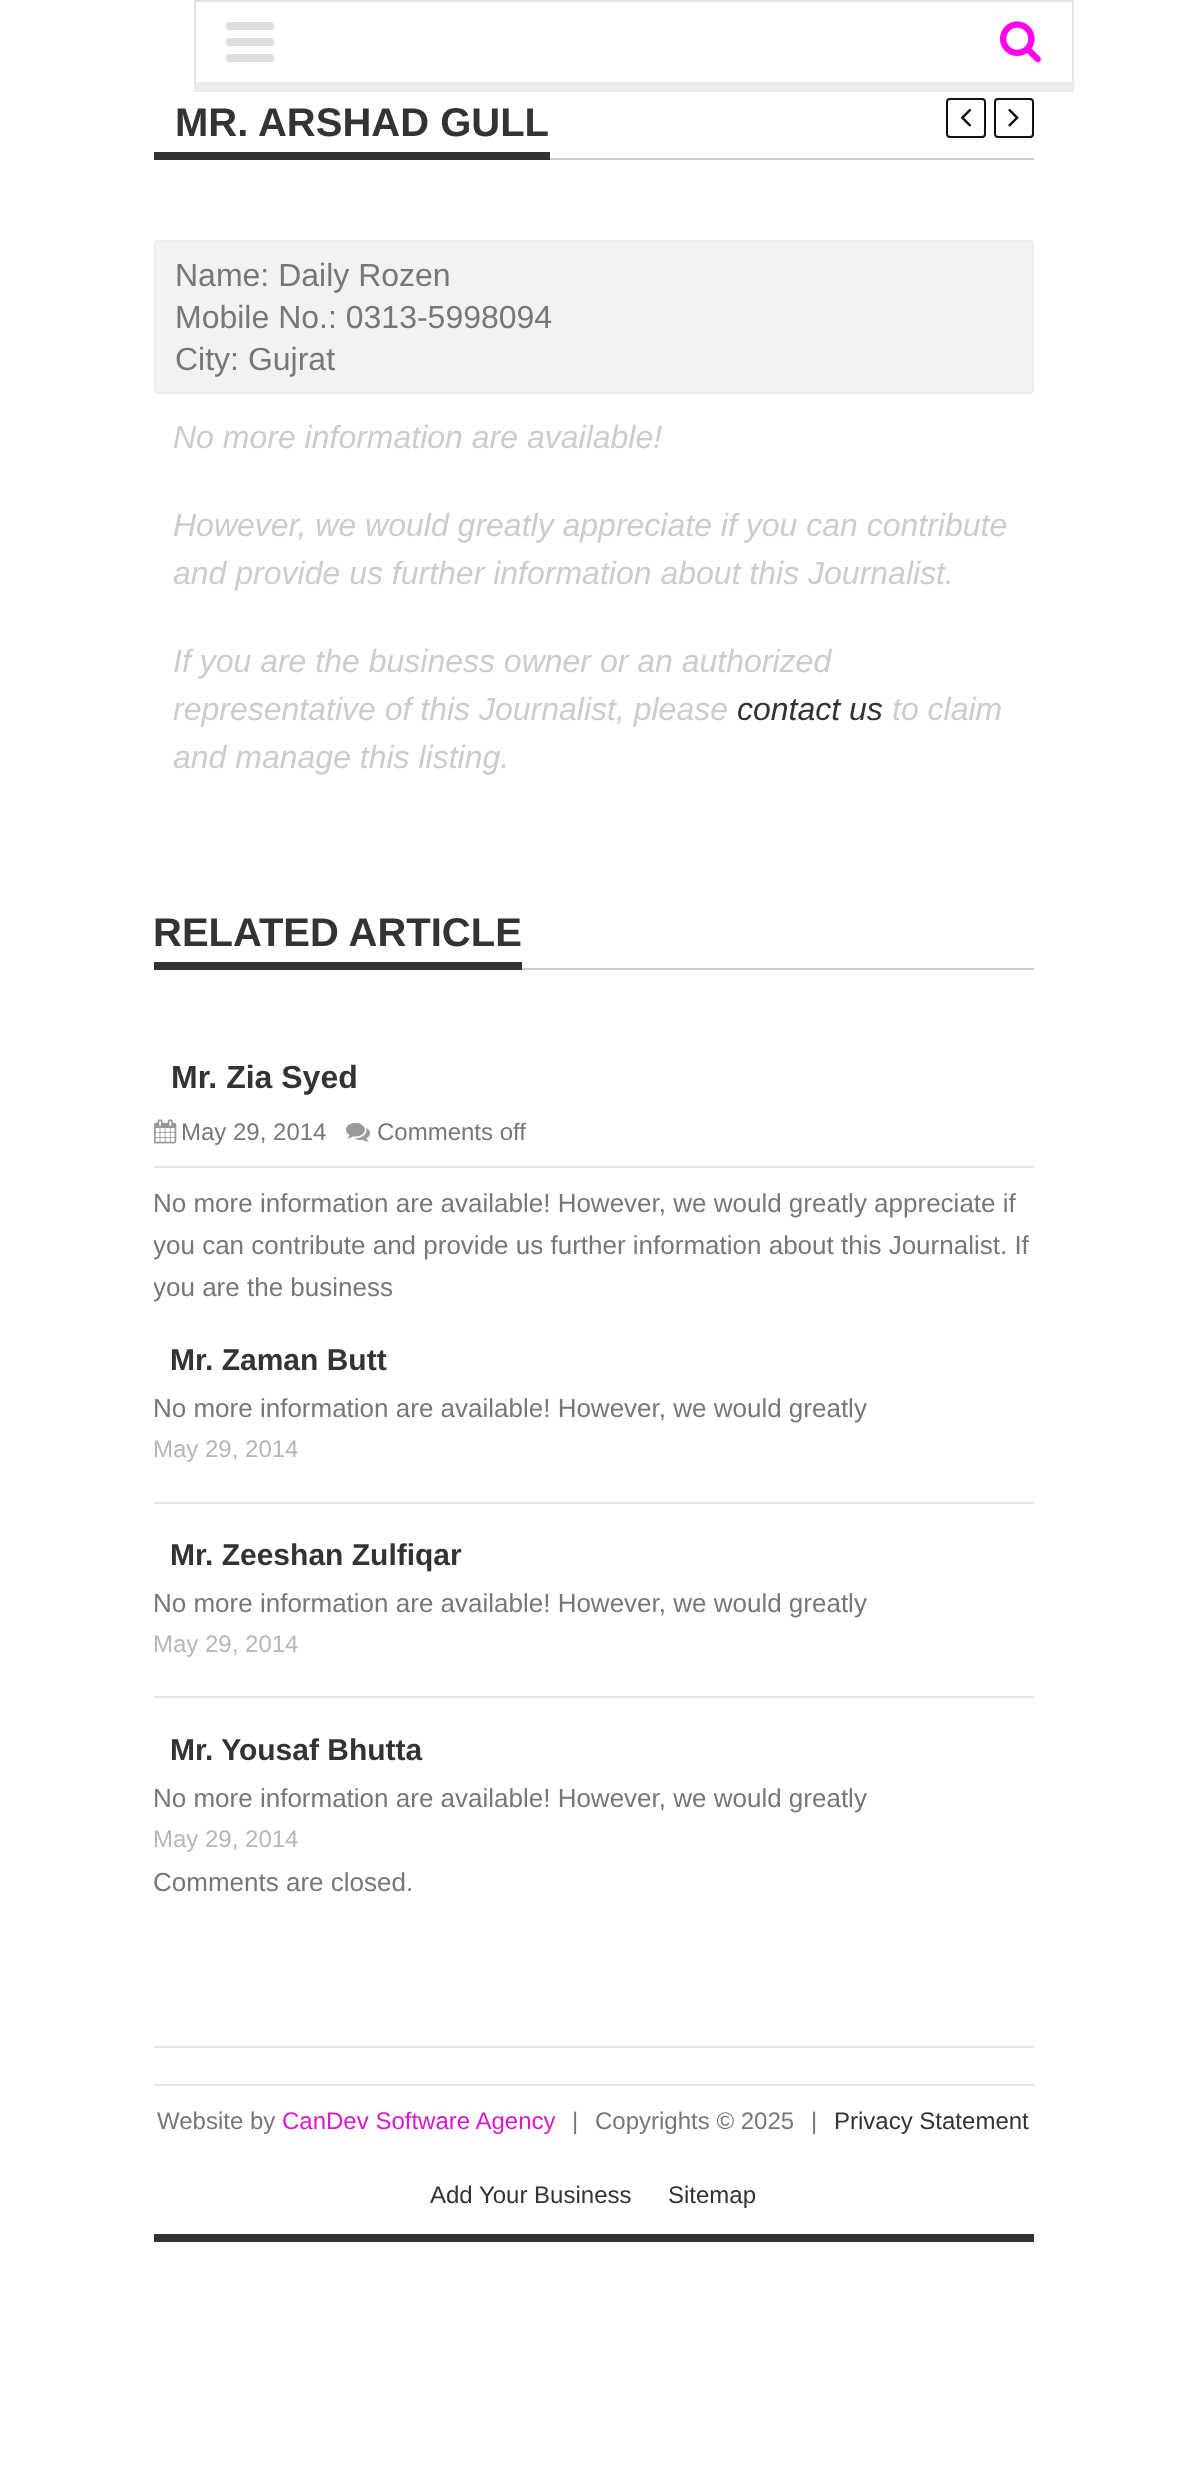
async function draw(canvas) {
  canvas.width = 1185
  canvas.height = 2470
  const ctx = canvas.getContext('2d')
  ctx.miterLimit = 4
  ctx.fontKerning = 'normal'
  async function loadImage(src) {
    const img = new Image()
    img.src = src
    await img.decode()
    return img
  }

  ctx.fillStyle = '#fff'
  ctx.fillRect(0, 0, 1185, 2470)
  ctx.fillStyle = '#e4e4e4'
  ctx.fillRect(194, 0, 880, 2)
  ctx.beginPath()
  ctx.moveTo(1074, 0)
  ctx.lineTo(1074, 92)
  ctx.lineTo(1072, 82)
  ctx.lineTo(1072, 2)
  ctx.closePath()
  ctx.fill()
  ctx.fillStyle = '#eaeced'
  ctx.beginPath()
  ctx.moveTo(1074, 92)
  ctx.lineTo(194, 92)
  ctx.lineTo(196, 82)
  ctx.lineTo(1072, 82)
  ctx.closePath()
  ctx.fill()
  ctx.fillStyle = '#e4e4e4'
  ctx.beginPath()
  ctx.moveTo(194, 92)
  ctx.lineTo(194, 0)
  ctx.lineTo(196, 2)
  ctx.lineTo(196, 82)
  ctx.closePath()
  ctx.fill()
  ctx.fillStyle = '#ddd'
  ctx.beginPath()
  ctx.roundRect(226, 22, 48, 8, 4)
  ctx.fill()
  ctx.beginPath()
  ctx.roundRect(226, 38, 48, 8, 4)
  ctx.fill()
  ctx.beginPath()
  ctx.roundRect(226, 54, 48, 8, 4)
  ctx.fill()
  ctx.drawImage(await loadImage('image0.png'), 1000, 21, 41, 42)
  ctx.fillStyle = '#ccc'
  ctx.fillRect(550, 158, 484, 2)
  ctx.fillStyle = '#333'
  ctx.fillRect(154, 152, 396, 8)
  ctx.font = 'bold 40px Liberation Sans'
  ctx.fillText('MR. ARSHAD GULL', 175, 136)
  ctx.beginPath()
  ctx.roundRect(947, 99, 38, 38, 3)
  ctx.strokeStyle = '#111'
  ctx.lineWidth = 2
  ctx.stroke()
  ctx.drawImage(await loadImage('image1.png'), 960, 108, 12, 19)
  ctx.beginPath()
  ctx.roundRect(995, 99, 38, 38, 3)
  ctx.stroke()
  ctx.drawImage(await loadImage('image2.png'), 1008, 108, 11, 19)
  ctx.fillStyle = '#f2f2f2'
  ctx.beginPath()
  ctx.roundRect(155, 241, 878, 152, 3)
  ctx.fill()
  ctx.strokeStyle = '#ececec'
  ctx.stroke()
  ctx.font = '32px Liberation Sans'
  ctx.fillStyle = '#777'
  ctx.fillText('Name: Daily Rozen', 175, 286)
  ctx.fillText('Mobile No.: 0313-5998094', 175, 328)
  ctx.fillText('City: Gujrat', 175, 370)
  ctx.font = 'italic 32px Liberation Sans'
  ctx.fillStyle = '#ccc'
  ctx.fillText('No more information are available!', 173, 448)
  ctx.fillText('However, we would greatly appreciate if you can contribute', 173, 536)
  ctx.fillText('and provide us further information about this Journalist.', 173, 584)
  ctx.fillText('If you are the business owner or an authorized', 173, 672)
  ctx.fillText('representative of this Journalist, please', 173, 720)
  ctx.fillStyle = '#333'
  ctx.fillText('contact us', 737, 720)
  ctx.fillStyle = '#ccc'
  ctx.fillText('to claim', 892, 720)
  ctx.fillText('and manage this listing.', 173, 768)
  ctx.fillRect(522, 968, 512, 2)
  ctx.fillStyle = '#333'
  ctx.fillRect(154, 962, 368, 8)
  ctx.font = 'bold 40px Liberation Sans'
  ctx.fillText('RELATED ARTICLE', 153, 946)
  ctx.font = 'bold 32px Liberation Sans'
  ctx.fillText('Mr. Zia Syed', 171, 1088)
  ctx.fillStyle = '#e4e4e4'
  ctx.fillRect(154, 1166, 880, 2)
  ctx.drawImage(await loadImage('image3.png'), 154, 1119, 23, 25)
  ctx.font = '24px Liberation Sans'
  ctx.fillStyle = '#777'
  ctx.fillText('May 29, 2014', 181, 1140)
  ctx.drawImage(await loadImage('image4.png'), 346, 1122, 24, 20)
  ctx.fillText('Comments off', 377, 1140)
  ctx.font = '26px Liberation Sans'
  ctx.fillText('No more information are available! However, we would greatly appreciate if', 153, 1212)
  ctx.save()
  ctx.beginPath()
  ctx.rect(154, 1054, 880, 254)
  ctx.clip()
  ctx.fillText('you can contribute and provide us further information about this Journalist. If', 153, 1254)
  ctx.fillText('you are the business', 153, 1296)
  ctx.restore()
  ctx.fillStyle = '#e4e4e4'
  ctx.fillRect(154, 1502, 880, 2)
  ctx.font = 'bold 30px Liberation Sans'
  ctx.fillStyle = '#333'
  ctx.fillText('Mr. Zaman Butt', 170, 1370)
  ctx.font = '26px Liberation Sans'
  ctx.fillStyle = '#777'
  ctx.fillText('No more information are available! However, we would greatly', 153, 1417)
  ctx.font = '24px Liberation Sans'
  ctx.fillStyle = '#b7b7b7'
  ctx.fillText('May 29, 2014', 153, 1457)
  ctx.fillStyle = '#e4e4e4'
  ctx.fillRect(154, 1696, 880, 2)
  ctx.font = 'bold 30px Liberation Sans'
  ctx.fillStyle = '#333'
  ctx.fillText('Mr. Zeeshan Zulfiqar', 170, 1565)
  ctx.font = '26px Liberation Sans'
  ctx.fillStyle = '#777'
  ctx.fillText('No more information are available! However, we would greatly', 153, 1612)
  ctx.font = '24px Liberation Sans'
  ctx.fillStyle = '#b7b7b7'
  ctx.fillText('May 29, 2014', 153, 1652)
  ctx.font = 'bold 30px Liberation Sans'
  ctx.fillStyle = '#333'
  ctx.fillText('Mr. Yousaf Bhutta', 170, 1760)
  ctx.font = '26px Liberation Sans'
  ctx.fillStyle = '#777'
  ctx.fillText('No more information are available! However, we would greatly', 153, 1807)
  ctx.font = '24px Liberation Sans'
  ctx.fillStyle = '#b7b7b7'
  ctx.fillText('May 29, 2014', 153, 1847)
  ctx.font = '26px Liberation Sans'
  ctx.fillStyle = '#777'
  ctx.fillText('Comments are closed.', 153, 1891)
  ctx.fillStyle = '#e4e4e4'
  ctx.fillRect(154, 2046, 880, 2)
  ctx.fillStyle = '#e5e5e5'
  ctx.fillRect(154, 2084, 880, 2)
  ctx.fillStyle = '#333'
  ctx.fillRect(154, 2234, 880, 8)
  ctx.font = '24px Liberation Sans'
  ctx.fillStyle = '#777'
  ctx.fillText('Website by', 157, 2129)
  ctx.fillStyle = '#db18cc'
  ctx.fillText('CanDev Software Agency', 282, 2129)
  ctx.fillStyle = '#777'
  ctx.fillText('|', 572, 2129)
  ctx.fillText('Copyrights © 2025', 595, 2129)
  ctx.fillText('|', 811, 2129)
  ctx.fillStyle = '#333'
  ctx.fillText('Privacy Statement', 834, 2129)
  ctx.fillText('Add Your Business', 430, 2203)
  ctx.fillText('Sitemap', 668, 2203)
}

draw(document.querySelector('canvas'))
